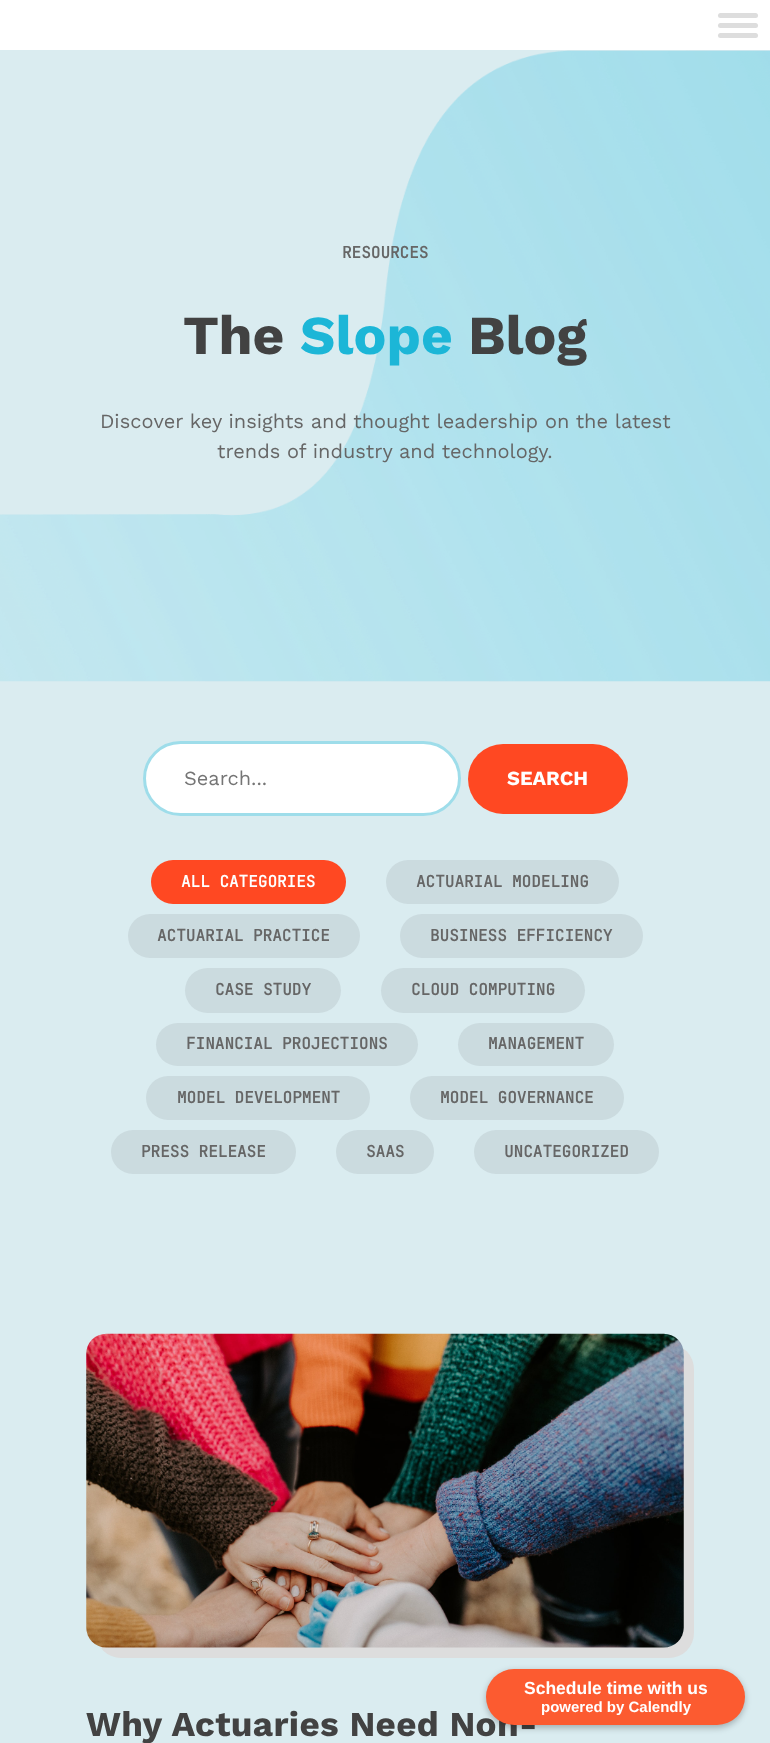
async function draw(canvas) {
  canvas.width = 770
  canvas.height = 1743
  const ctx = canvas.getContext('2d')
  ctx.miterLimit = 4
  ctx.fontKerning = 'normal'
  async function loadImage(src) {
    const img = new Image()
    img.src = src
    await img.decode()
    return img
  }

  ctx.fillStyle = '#daecf0'
  ctx.fillRect(0, 0, 770, 1743)
  ctx.fillStyle = '#fff'
  ctx.fillRect(0, 0, 770, 50)
  ctx.fillStyle = '#ddd'
  ctx.beginPath()
  ctx.roundRect(718, 13, 40, 5, 2.5)
  ctx.fill()
  ctx.beginPath()
  ctx.roundRect(718, 23, 40, 5, 2.5)
  ctx.fill()
  ctx.beginPath()
  ctx.roundRect(718, 33, 40, 5, 2.5)
  ctx.fill()
  ctx.drawImage(await loadImage('image0.png'), 0, 50, 770, 632)
  ctx.font = 'bold 16px JetBrains Mono'
  ctx.fillStyle = '#666'
  ctx.fillText('RESOURCES', 342, 258)
  ctx.font = 'bold 55px Work Sans'
  ctx.fillStyle = '#424242'
  ctx.fillText('The', 183, 354)
  ctx.fillStyle = '#1cb6d7'
  ctx.fillText('Slope', 300, 354)
  ctx.fillStyle = '#424242'
  ctx.fillText('Blog', 468, 354)
  ctx.font = '20px Work Sans'
  ctx.fillStyle = '#666'
  ctx.fillText('Discover key insights and thought leadership on the latest', 100, 428)
  ctx.fillText('trends of industry and technology.', 217, 458)
  ctx.fillStyle = '#fff'
  ctx.beginPath()
  ctx.roundRect(144.5, 742.5, 315, 72, 36)
  ctx.fill()
  ctx.strokeStyle = '#9eddea'
  ctx.lineWidth = 3
  ctx.stroke()
  ctx.fillStyle = '#757575'
  ctx.fillText('Search...', 184, 785)
  ctx.fillStyle = '#ff4822'
  ctx.beginPath()
  ctx.roundRect(468, 744, 160, 70, 35)
  ctx.fill()
  ctx.font = 'bold 20px Work Sans'
  ctx.fillStyle = '#fff'
  ctx.fillText('SEARCH', 507, 785)
  ctx.fillStyle = '#ff4822'
  ctx.beginPath()
  ctx.roundRect(151, 860, 195, 44, 22)
  ctx.fill()
  ctx.font = 'bold 16px JetBrains Mono'
  ctx.fillStyle = '#fff'
  ctx.fillText('ALL CATEGORIES', 181, 887)
  ctx.fillStyle = '#cbdbdf'
  ctx.beginPath()
  ctx.roundRect(386, 860, 233, 44, 22)
  ctx.fill()
  ctx.fillStyle = '#666'
  ctx.fillText('ACTUARIAL MODELING', 416, 887)
  ctx.fillStyle = '#cbdbdf'
  ctx.beginPath()
  ctx.roundRect(128, 914, 232, 44, 22)
  ctx.fill()
  ctx.fillStyle = '#666'
  ctx.fillText('ACTUARIAL PRACTICE', 157, 941)
  ctx.fillStyle = '#cbdbdf'
  ctx.beginPath()
  ctx.roundRect(400, 914, 243, 44, 22)
  ctx.fill()
  ctx.fillStyle = '#666'
  ctx.fillText('BUSINESS EFFICIENCY', 430, 941)
  ctx.fillStyle = '#cbdbdf'
  ctx.beginPath()
  ctx.roundRect(185, 968, 156, 45, 22.5)
  ctx.fill()
  ctx.fillStyle = '#666'
  ctx.fillText('CASE STUDY', 215, 995)
  ctx.fillStyle = '#cbdbdf'
  ctx.beginPath()
  ctx.roundRect(381, 968, 204, 45, 22.5)
  ctx.fill()
  ctx.fillStyle = '#666'
  ctx.fillText('CLOUD COMPUTING', 411, 995)
  ctx.fillStyle = '#cbdbdf'
  ctx.beginPath()
  ctx.roundRect(156, 1023, 262, 43, 21.5)
  ctx.fill()
  ctx.fillStyle = '#666'
  ctx.fillText('FINANCIAL PROJECTIONS', 186, 1049)
  ctx.fillStyle = '#cbdbdf'
  ctx.beginPath()
  ctx.roundRect(458, 1023, 156, 43, 21.5)
  ctx.fill()
  ctx.fillStyle = '#666'
  ctx.fillText('MANAGEMENT', 488, 1049)
  ctx.fillStyle = '#cbdbdf'
  ctx.beginPath()
  ctx.roundRect(146, 1076, 224, 44, 22)
  ctx.fill()
  ctx.fillStyle = '#666'
  ctx.fillText('MODEL DEVELOPMENT', 177, 1103)
  ctx.fillStyle = '#cbdbdf'
  ctx.beginPath()
  ctx.roundRect(410, 1076, 214, 44, 22)
  ctx.fill()
  ctx.fillStyle = '#666'
  ctx.fillText('MODEL GOVERNANCE', 440, 1103)
  ctx.fillStyle = '#cbdbdf'
  ctx.beginPath()
  ctx.roundRect(111, 1130, 185, 44, 22)
  ctx.fill()
  ctx.fillStyle = '#666'
  ctx.fillText('PRESS RELEASE', 141, 1157)
  ctx.fillStyle = '#cbdbdf'
  ctx.beginPath()
  ctx.roundRect(336, 1130, 98, 44, 22)
  ctx.fill()
  ctx.fillStyle = '#666'
  ctx.fillText('SAAS', 366, 1157)
  ctx.fillStyle = '#cbdbdf'
  ctx.beginPath()
  ctx.roundRect(474, 1130, 185, 44, 22)
  ctx.fill()
  ctx.fillStyle = '#666'
  ctx.fillText('UNCATEGORIZED', 504, 1157)
  ctx.fillStyle = '#ddd'
  ctx.beginPath()
  ctx.roundRect(96, 1344, 598, 314, 25)
  ctx.fill()
  ctx.drawImage(await loadImage('image1.png'), 86, 1333, 598, 315)
  ctx.letterSpacing = '0.35px'
  ctx.font = 'bold 35px Work Sans'
  ctx.fillStyle = '#424242'
  ctx.fillText('Why Actuaries Need Non-', 86, 1736)
  ctx.fillStyle = '#00000040'
  ctx.filter = 'blur(3px)'
  ctx.beginPath()
  ctx.roundRect(486, 1671, 259, 57, 28.5)
  ctx.fill()
  ctx.filter = 'none'
  ctx.fillStyle = '#fc5b30'
  ctx.beginPath()
  ctx.roundRect(486, 1669, 259, 56, 28)
  ctx.fill()
  ctx.letterSpacing = '0px'
  ctx.font = 'bold 17.5px Liberation Sans'
  ctx.fillStyle = '#fff'
  ctx.fillText('Schedule time with us', 524, 1694)
  ctx.font = 'bold 15px Liberation Sans'
  ctx.fillText('powered by Calendly', 541, 1712)
}

draw(document.querySelector('canvas'))
